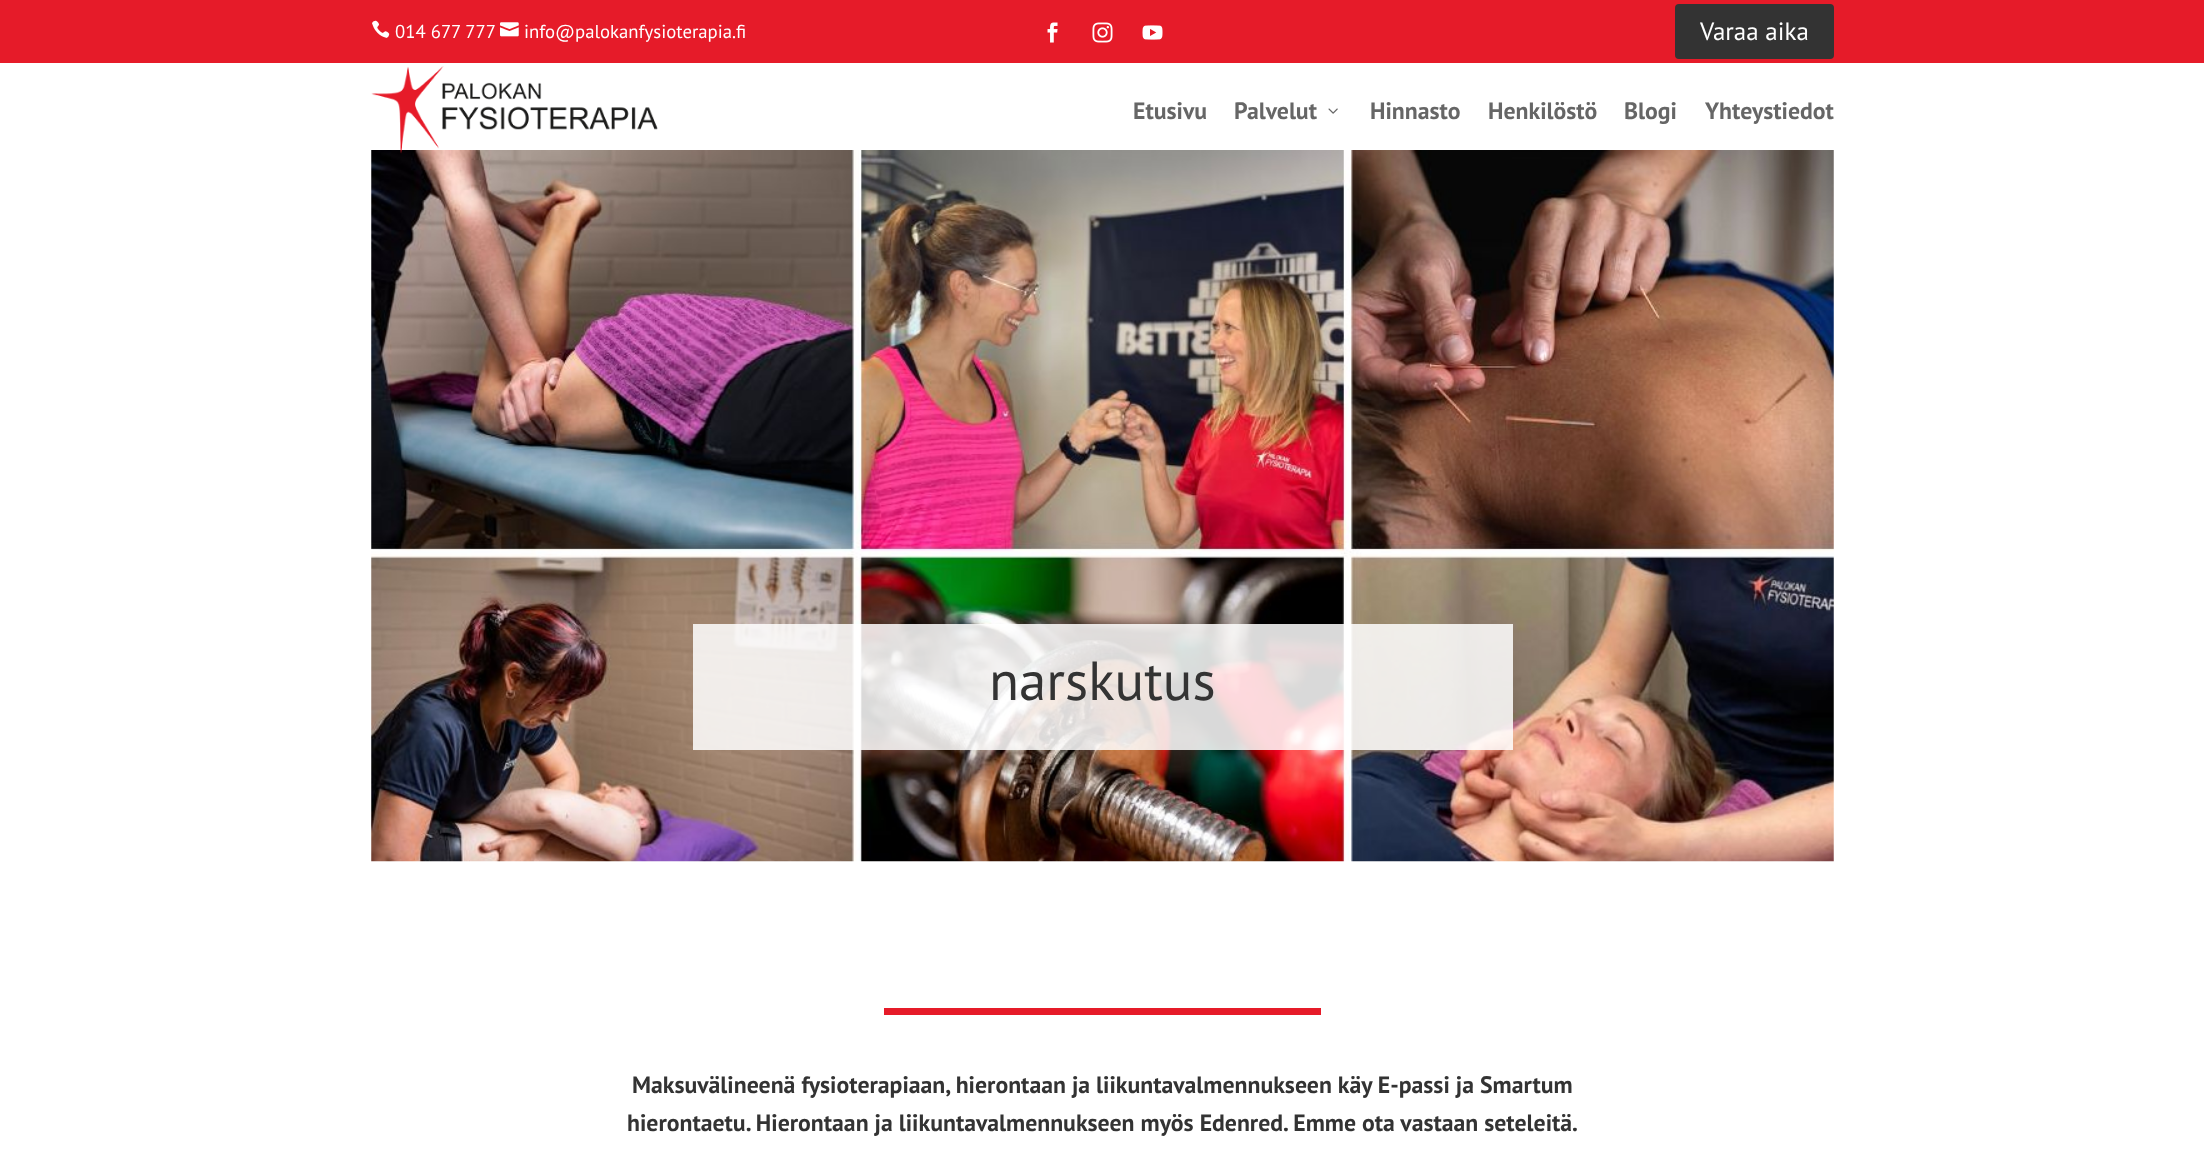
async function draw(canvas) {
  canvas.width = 2204
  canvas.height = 1163
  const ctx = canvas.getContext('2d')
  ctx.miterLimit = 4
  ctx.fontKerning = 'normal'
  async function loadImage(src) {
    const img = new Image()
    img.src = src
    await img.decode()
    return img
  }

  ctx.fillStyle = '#fff'
  ctx.fillRect(0, 0, 2204, 1163)
  ctx.fillStyle = '#e61b29'
  ctx.fillRect(0, 0, 2204, 63)
  ctx.drawImage(await loadImage('image0.png'), 372, 20, 18, 18)
  ctx.font = '18.75px PT Sans'
  ctx.fillStyle = '#fff'
  ctx.fillText('014 677 777', 395, 38)
  ctx.drawImage(await loadImage('image1.png'), 500, 22, 19, 15)
  ctx.fillText('info@palokanfysioterapia.fi', 524, 38)
  ctx.drawImage(await loadImage('image2.png'), 1047, 22, 11, 21)
  ctx.drawImage(await loadImage('image3.png'), 1092, 22, 21, 21)
  ctx.drawImage(await loadImage('image4.png'), 1142, 25, 21, 15)
  ctx.fillStyle = '#333'
  ctx.beginPath()
  ctx.roundRect(1675, 4, 159, 55, 4)
  ctx.fill()
  ctx.font = '25px PT Sans'
  ctx.fillStyle = '#fff'
  ctx.fillText('Varaa aika', 1700, 40)
  ctx.drawImage(await loadImage('image7.png'), 371, 150, 1463, 712)
  ctx.drawImage(await loadImage('image5.png'), 371, 66, 287, 88)
  ctx.font = 'bold 23.75px PT Sans'
  ctx.fillStyle = '#666'
  ctx.fillText('Etusivu', 1133, 119)
  ctx.fillText('Palvelut', 1234, 119)
  ctx.drawImage(await loadImage('image6.png'), 1328, 108, 10, 6)
  ctx.fillText('Hinnasto', 1370, 119)
  ctx.fillText('Henkilöstö', 1488, 119)
  ctx.fillText('Blogi', 1624, 119)
  ctx.fillText('Yhteystiedot', 1705, 119)
  ctx.fillStyle = '#ffffffd9'
  ctx.fillRect(693, 624, 820, 126)
  ctx.font = '55px PT Sans'
  ctx.fillStyle = '#333'
  ctx.fillText('narskutus', 989, 700)
  ctx.fillStyle = '#e61b29'
  ctx.fillRect(884, 1008, 437, 7)
  ctx.font = 'bold 23.75px PT Sans'
  ctx.fillStyle = '#333'
  ctx.fillText('Maksuvälineenä fysioterapiaan, hierontaan ja liikuntavalmennukseen käy E-passi ja Smartum', 632, 1093)
  ctx.fillText('hierontaetu. Hierontaan ja liikuntavalmennukseen myös Edenred. Emme ota vastaan seteleitä.', 627, 1131)
}

draw(document.querySelector('canvas'))
